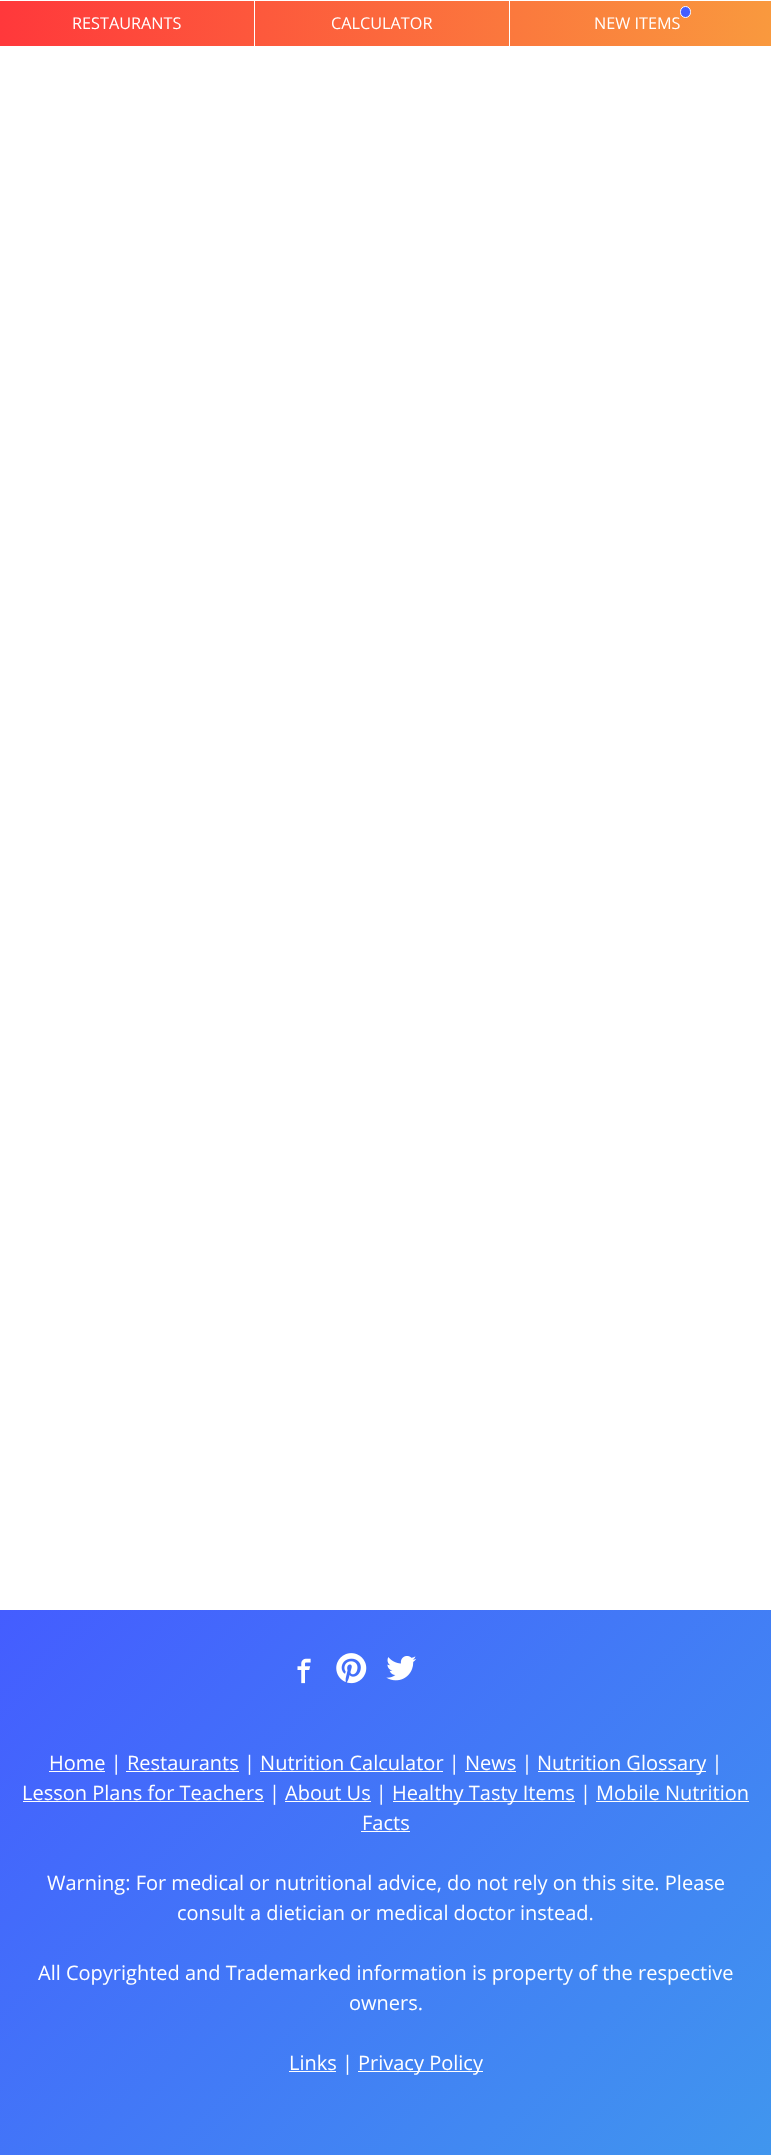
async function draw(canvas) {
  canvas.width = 771
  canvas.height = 2155
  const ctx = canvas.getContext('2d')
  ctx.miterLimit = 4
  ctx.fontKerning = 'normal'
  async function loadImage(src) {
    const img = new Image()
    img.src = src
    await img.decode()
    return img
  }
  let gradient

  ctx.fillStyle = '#fff'
  ctx.fillRect(0, 0, 771, 2155)
  gradient = ctx.createLinearGradient(0, 24, 771, 24)
  gradient.addColorStop(0, '#ff383b')
  gradient.addColorStop(1, '#f9993e')
  ctx.fillStyle = gradient
  ctx.fillRect(0, 1, 771, 45)
  ctx.fillStyle = '#fff'
  ctx.fillRect(254, 1, 1, 45)
  ctx.font = '16.25px Open Sans'
  ctx.fillText('RESTAURANTS', 72, 29)
  ctx.fillText('CALCULATOR', 331, 29)
  ctx.fillRect(509, 1, 1, 45)
  ctx.fillStyle = '#445dff'
  ctx.beginPath()
  ctx.roundRect(680.5, 6.5, 10, 11, 5)
  ctx.fill()
  ctx.strokeStyle = '#fff'
  ctx.stroke()
  ctx.fillStyle = '#fff'
  ctx.fillText('NEW ITEMS', 594, 29)
  gradient = ctx.createLinearGradient(57, 1553, 715, 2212)
  gradient.addColorStop(0, '#445dff')
  gradient.addColorStop(1, '#4096ee')
  ctx.fillStyle = gradient
  ctx.fillRect(0, 1610, 771, 545)
  ctx.drawImage(await loadImage('image0.png'), 297, 1658, 14, 26)
  ctx.drawImage(await loadImage('image1.png'), 336, 1653, 31, 31)
  ctx.drawImage(await loadImage('image2.png'), 386, 1656, 31, 25)
  ctx.fillStyle = '#fff'
  ctx.fillRect(49, 1771, 56, 1)
  ctx.font = '20px Open Sans'
  ctx.fillText('Home | Restaurants | Nutrition Calculator | News |', 49, 1770)
  ctx.fillRect(538, 1771, 168, 1)
  ctx.fillText('Nutrition Glossary |', 537, 1770)
  ctx.fillRect(126, 1771, 113, 1)
  ctx.fillRect(260, 1771, 183, 1)
  ctx.fillRect(465, 1771, 51, 1)
  ctx.fillRect(23, 1801, 241, 1)
  ctx.fillText('Lesson Plans for Teachers | About Us |', 22, 1800)
  ctx.fillRect(393, 1801, 182, 1)
  ctx.fillText('Healthy Tasty Items | Mobile Nutrition', 392, 1800)
  ctx.fillRect(285, 1801, 86, 1)
  ctx.fillText('Facts', 362, 1830)
  ctx.fillRect(596, 1801, 153, 1)
  ctx.fillRect(361, 1831, 49, 1)
  ctx.fillText('Warning: For medical or nutritional advice, do not rely on this site. Please', 47, 1890)
  ctx.fillText('consult a dietician or medical doctor instead.', 177, 1920)
  ctx.fillText('All Copyrighted and Trademarked information is property of the respective', 38, 1980)
  ctx.fillText('owners.', 349, 2010)
  ctx.fillRect(289, 2071, 47, 1)
  ctx.fillText('Links |', 289, 2070)
  ctx.fillRect(358, 2071, 125, 1)
  ctx.fillText('Privacy Policy', 358, 2070)
}

draw(document.querySelector('canvas'))
